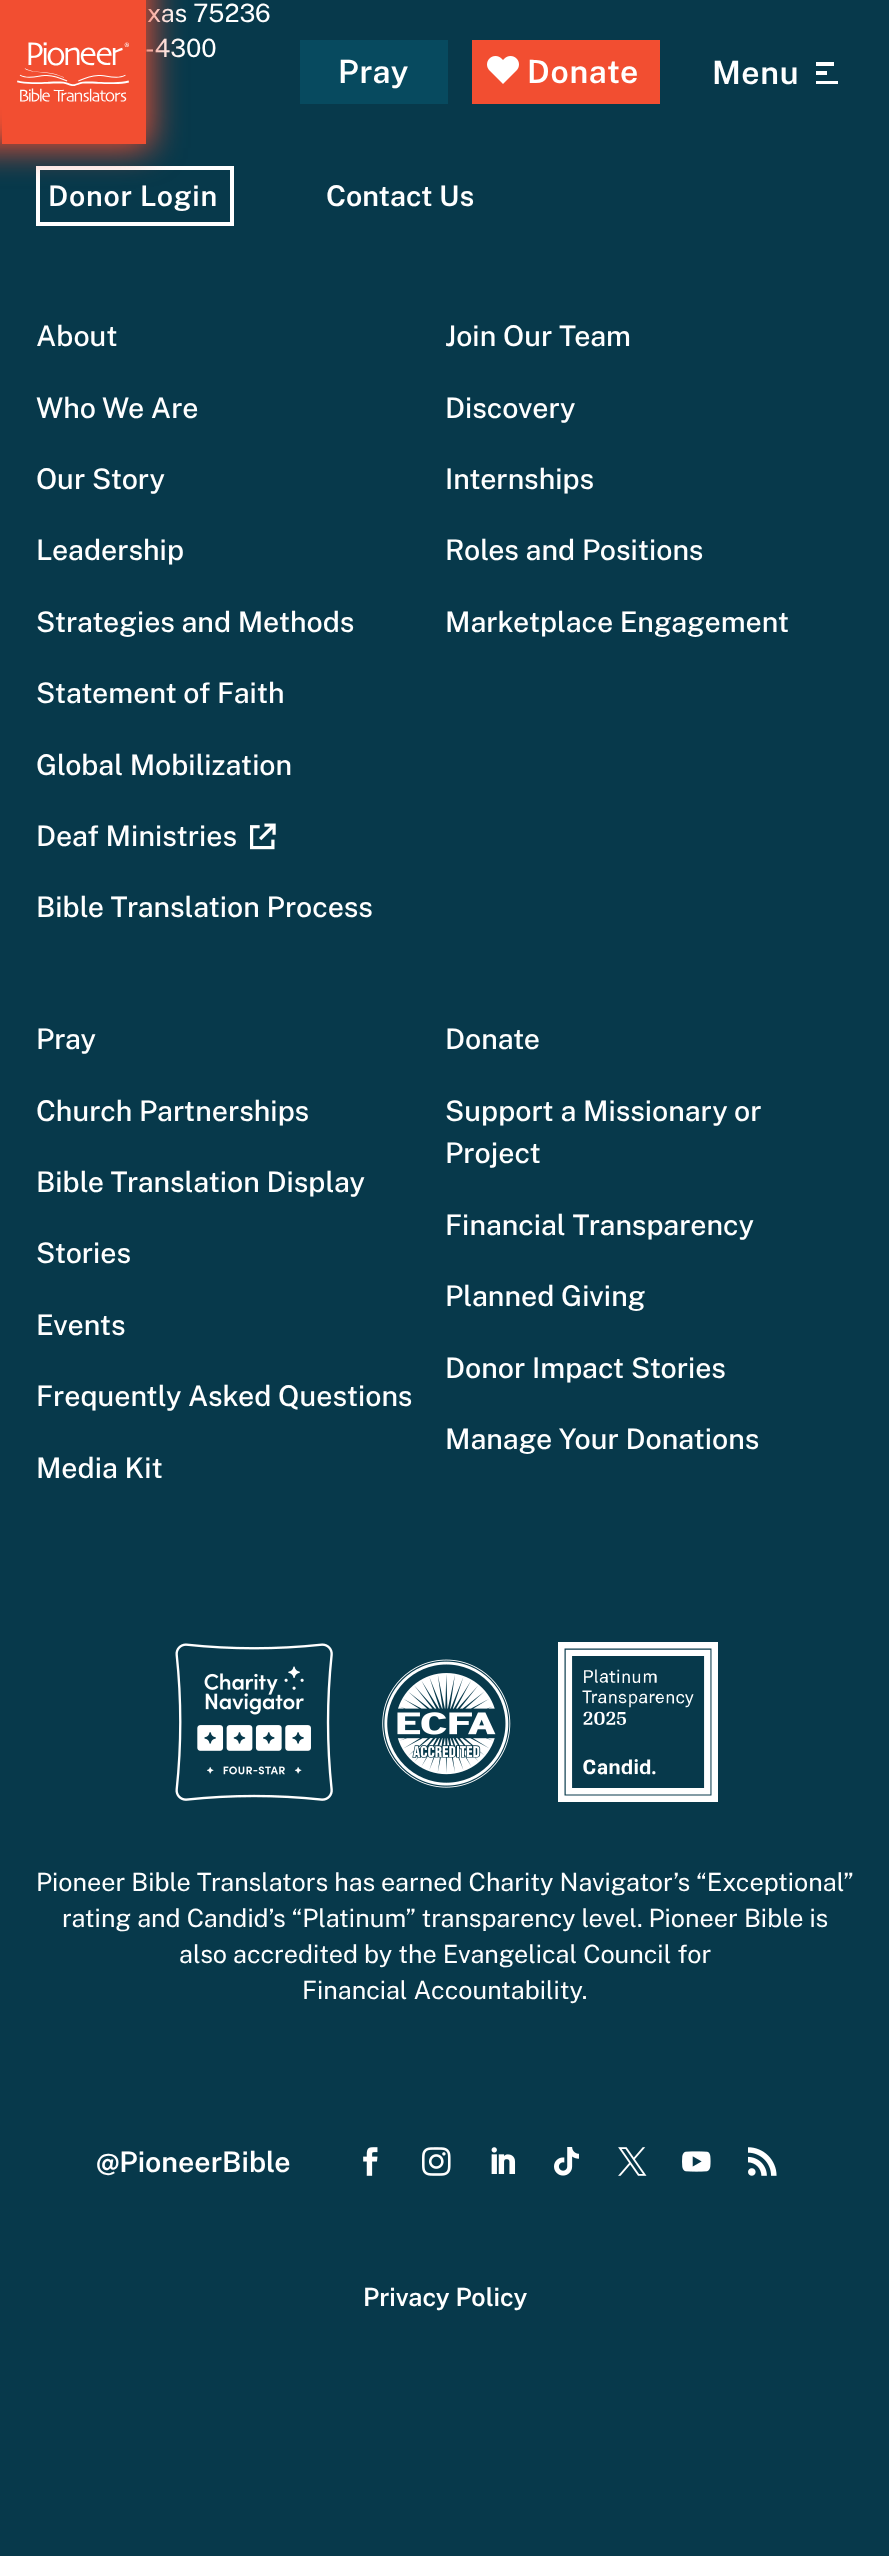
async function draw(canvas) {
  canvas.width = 889
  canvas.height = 2556
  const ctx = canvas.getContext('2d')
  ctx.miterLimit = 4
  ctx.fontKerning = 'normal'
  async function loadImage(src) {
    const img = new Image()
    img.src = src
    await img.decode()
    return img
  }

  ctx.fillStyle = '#07394b'
  ctx.fillRect(0, 0, 889, 2556)
  ctx.font = '25.15px Public Sans'
  ctx.fillStyle = '#fff'
  ctx.fillText('xas 75236', 147, 22)
  ctx.fillText('-4300', 145, 57)
  ctx.strokeStyle = '#fff'
  ctx.lineWidth = 4
  ctx.strokeRect(38, 168, 194, 56)
  ctx.letterSpacing = '0.75px'
  ctx.font = '600 28.5px Public Sans'
  ctx.fillText('Donor Login', 48, 206)
  ctx.letterSpacing = '0px'
  ctx.fillText('Contact Us', 326, 206)
  ctx.font = '500 28.5px Public Sans'
  ctx.fillText('About', 36, 346)
  ctx.fillText('Who We Are', 36, 418)
  ctx.fillText('Our Story', 36, 489)
  ctx.fillText('Leadership', 36, 560)
  ctx.fillText('Strategies and Methods', 36, 632)
  ctx.fillText('Statement of Faith', 36, 703)
  ctx.fillText('Global Mobilization', 36, 775)
  ctx.fillText('Deaf Ministries', 36, 846)
  ctx.drawImage(await loadImage('image0.png'), 250, 823, 26, 27)
  ctx.fillText('Bible Translation Process', 36, 917)
  ctx.fillText('Join Our Team', 445, 346)
  ctx.fillText('Discovery', 445, 418)
  ctx.fillText('Internships', 445, 489)
  ctx.fillText('Roles and Positions', 445, 560)
  ctx.fillText('Marketplace Engagement', 445, 632)
  ctx.fillText('Pray', 36, 1049)
  ctx.fillText('Church Partnerships', 36, 1121)
  ctx.fillText('Bible Translation Display', 36, 1192)
  ctx.fillText('Stories', 36, 1263)
  ctx.fillText('Events', 36, 1335)
  ctx.fillText('Frequently Asked Questions', 36, 1406)
  ctx.fillText('Media Kit', 36, 1478)
  ctx.fillText('Donate', 445, 1049)
  ctx.fillText('Support a Missionary or', 445, 1121)
  ctx.fillText('Project', 445, 1163)
  ctx.fillText('Financial Transparency', 445, 1235)
  ctx.fillText('Planned Giving', 445, 1306)
  ctx.fillText('Donor Impact Stories', 445, 1378)
  ctx.fillText('Manage Your Donations', 445, 1449)
  ctx.drawImage(await loadImage('image1.png'), 175, 1643, 158, 158)
  ctx.drawImage(await loadImage('image2.png'), 382, 1659, 129, 129)
  ctx.drawImage(await loadImage('image3.png'), 558, 1642, 160, 160)
  ctx.font = '25.15px Public Sans'
  ctx.fillText('Pioneer Bible Translators has earned Charity Navigator’s “Exceptional”', 36, 1891)
  ctx.fillText('rating and Candid’s “Platinum” transparency level. Pioneer Bible is', 62, 1927)
  ctx.fillText('also accredited by the Evangelical Council for', 179, 1963)
  ctx.fillText('Financial Accountability.', 302, 1999)
  ctx.font = '600 28.5px Public Sans'
  ctx.fillText('@PioneerBible', 96, 2172)
  ctx.drawImage(await loadImage('image4.png'), 363, 2147, 15, 29)
  ctx.drawImage(await loadImage('image5.png'), 422, 2147, 29, 29)
  ctx.drawImage(await loadImage('image6.png'), 491, 2147, 25, 27)
  ctx.drawImage(await loadImage('image7.png'), 554, 2147, 25, 29)
  ctx.drawImage(await loadImage('image8.png'), 618, 2147, 29, 29)
  ctx.drawImage(await loadImage('image9.png'), 682, 2151, 29, 21)
  ctx.drawImage(await loadImage('image10.png'), 748, 2147, 29, 29)
  ctx.font = '600 25.15px Public Sans'
  ctx.fillText('Privacy Policy', 363, 2306)
  ctx.fillStyle = '#f24e31'
  ctx.filter = 'blur(17px)'
  ctx.beginPath()
  ctx.rect(-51, -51, 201, 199)
  ctx.fill()
  ctx.filter = 'none'
  ctx.fillRect(2, 0, 144, 144)
  ctx.drawImage(await loadImage('image11.png'), 17, 42, 112, 60)
  ctx.fillStyle = '#074a5f'
  ctx.fillRect(300, 40, 148, 64)
  ctx.letterSpacing = '0.75px'
  ctx.font = '600 32px Public Sans'
  ctx.fillStyle = '#fff'
  ctx.fillText('Pray', 338, 83)
  ctx.fillStyle = '#f24e31'
  ctx.fillRect(472, 40, 188, 64)
  ctx.drawImage(await loadImage('image12.png'), 487, 56, 32, 28)
  ctx.fillStyle = '#fff'
  ctx.fillText('Donate', 527, 83)
  ctx.fillText('Menu', 712, 84)
  ctx.fillRect(816, 62, 18, 4)
  ctx.fillRect(816, 81, 22, 3)
  ctx.fillRect(816, 71, 11, 4)
}

draw(document.querySelector('canvas'))
